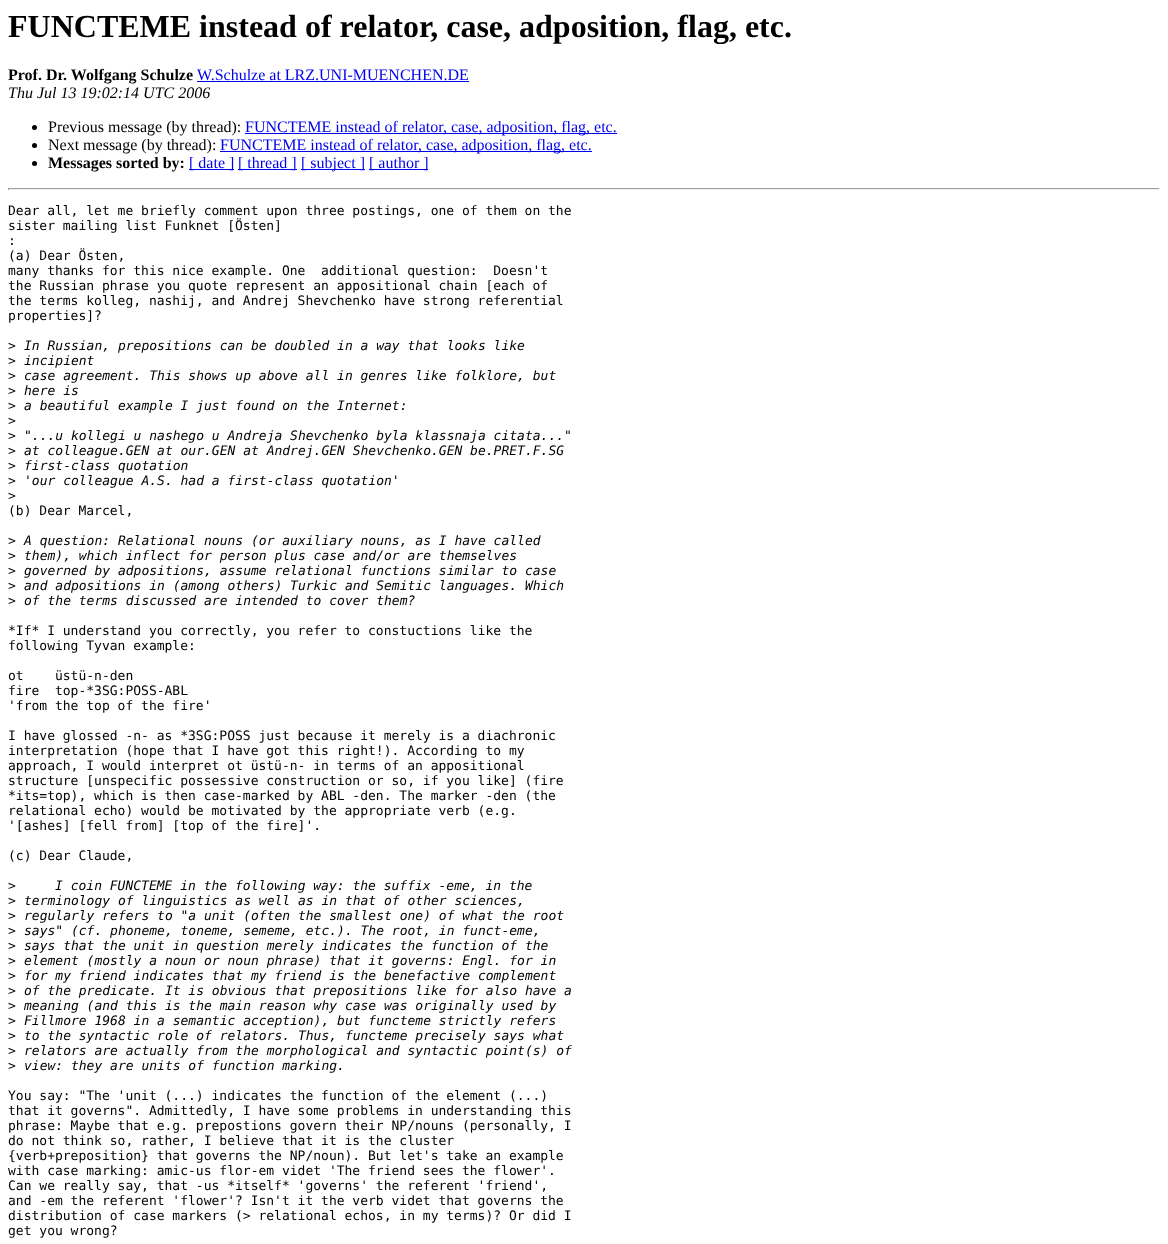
async function draw(canvas) {
  canvas.width = 1168
  canvas.height = 1244
  const ctx = canvas.getContext('2d')
  ctx.miterLimit = 4
  ctx.fontKerning = 'normal'

  ctx.fillStyle = '#fff'
  ctx.fillRect(0, 0, 1168, 1244)
  ctx.font = 'bold 32px Liberation Serif'
  ctx.fillStyle = '#000'
  ctx.fillText('FUNCTEME instead of relator, case, adposition, flag, etc.', 8, 37)
  ctx.font = 'bold 16px Liberation Serif'
  ctx.fillText('Prof. Dr. Wolfgang Schulze', 8, 80)
  ctx.font = '16px Liberation Serif'
  ctx.fillStyle = '#00e'
  ctx.fillText('W.Schulze at LRZ.UNI-MUENCHEN.DE', 197, 80)
  ctx.fillRect(197, 81, 272, 1)
  ctx.font = 'italic 16px Liberation Serif'
  ctx.fillStyle = '#000'
  ctx.fillText('Thu Jul 13 19:02:14 UTC 2006', 8, 98)
  ctx.beginPath()
  ctx.arc(34.5, 127.5, 2.5, 0, 2 * Math.PI)
  ctx.fill()
  ctx.font = '16px Liberation Serif'
  ctx.fillText('Previous message (by thread):', 48, 132)
  ctx.fillStyle = '#00e'
  ctx.fillRect(245, 133, 372, 1)
  ctx.fillText('FUNCTEME instead of relator, case, adposition, flag, etc.', 245, 132)
  ctx.fillStyle = '#000'
  ctx.beginPath()
  ctx.arc(34.5, 145.5, 2.5, 0, 2 * Math.PI)
  ctx.fill()
  ctx.fillText('Next message (by thread):', 48, 150)
  ctx.fillStyle = '#00e'
  ctx.fillRect(220, 151, 372, 1)
  ctx.fillText('FUNCTEME instead of relator, case, adposition, flag, etc.', 220, 150)
  ctx.fillStyle = '#000'
  ctx.beginPath()
  ctx.arc(34.5, 163.5, 2.5, 0, 2 * Math.PI)
  ctx.fill()
  ctx.font = 'bold 16px Liberation Serif'
  ctx.fillText('Messages sorted by:', 48, 168)
  ctx.fillStyle = '#00e'
  ctx.fillRect(189, 169, 45, 1)
  ctx.font = '16px Liberation Serif'
  ctx.fillText('[ date ]', 189, 168)
  ctx.fillRect(238, 169, 59, 1)
  ctx.fillText('[ thread ]', 238, 168)
  ctx.fillRect(301, 169, 64, 1)
  ctx.fillText('[ subject ]', 301, 168)
  ctx.fillRect(369, 169, 59, 1)
  ctx.fillText('[ author ]', 369, 168)
  ctx.fillStyle = '#9f9f9f'
  ctx.fillRect(8, 188, 1152, 1)
  ctx.fillStyle = '#eee'
  ctx.fillRect(1159, 188, 1, 2)
  ctx.fillRect(8, 189, 1152, 1)
  ctx.fillStyle = '#9f9f9f'
  ctx.fillRect(8, 188, 1, 2)
  ctx.font = '13px DejaVu Sans Mono'
  ctx.fillStyle = '#000'
  ctx.fillText('Dear all, let me briefly comment upon three postings, one of them on the', 8, 215)
  ctx.fillText('sister mailing list Funknet [Östen]', 8, 230)
  ctx.fillText(':', 8, 245)
  ctx.fillText('(a) Dear Östen,', 8, 260)
  ctx.fillText('many thanks for this nice example. One  additional question:  Doesn\'t', 8, 275)
  ctx.fillText('the Russian phrase you quote represent an appositional chain [each of', 8, 290)
  ctx.fillText('the terms kolleg, nashij, and Andrej Shevchenko have strong referential', 8, 305)
  ctx.fillText('properties]?', 8, 320)
  ctx.fillText('>', 8, 350)
  ctx.font = 'italic 13px DejaVu Sans Mono'
  ctx.fillText('In Russian, prepositions can be doubled in a way that looks like', 24, 350)
  ctx.font = '13px DejaVu Sans Mono'
  ctx.fillText('>', 8, 365)
  ctx.font = 'italic 13px DejaVu Sans Mono'
  ctx.fillText('incipient', 24, 365)
  ctx.font = '13px DejaVu Sans Mono'
  ctx.fillText('>', 8, 380)
  ctx.font = 'italic 13px DejaVu Sans Mono'
  ctx.fillText('case agreement. This shows up above all in genres like folklore, but', 24, 380)
  ctx.font = '13px DejaVu Sans Mono'
  ctx.fillText('>', 8, 395)
  ctx.font = 'italic 13px DejaVu Sans Mono'
  ctx.fillText('here is', 24, 395)
  ctx.font = '13px DejaVu Sans Mono'
  ctx.fillText('>', 8, 410)
  ctx.font = 'italic 13px DejaVu Sans Mono'
  ctx.fillText('a beautiful example I just found on the Internet:', 24, 410)
  ctx.font = '13px DejaVu Sans Mono'
  ctx.fillText('>', 8, 425)
  ctx.fillText('>', 8, 440)
  ctx.font = 'italic 13px DejaVu Sans Mono'
  ctx.fillText('"...u kollegi u nashego u Andreja Shevchenko byla klassnaja citata..."', 24, 440)
  ctx.font = '13px DejaVu Sans Mono'
  ctx.fillText('>', 8, 455)
  ctx.font = 'italic 13px DejaVu Sans Mono'
  ctx.fillText('at colleague.GEN at our.GEN at Andrej.GEN Shevchenko.GEN be.PRET.F.SG', 24, 455)
  ctx.font = '13px DejaVu Sans Mono'
  ctx.fillText('>', 8, 470)
  ctx.font = 'italic 13px DejaVu Sans Mono'
  ctx.fillText('first-class quotation', 24, 470)
  ctx.font = '13px DejaVu Sans Mono'
  ctx.fillText('>', 8, 485)
  ctx.font = 'italic 13px DejaVu Sans Mono'
  ctx.fillText('\'our colleague A.S. had a first-class quotation\'', 24, 485)
  ctx.font = '13px DejaVu Sans Mono'
  ctx.fillText('>', 8, 500)
  ctx.fillText('(b) Dear Marcel,', 8, 515)
  ctx.fillText('>', 8, 545)
  ctx.font = 'italic 13px DejaVu Sans Mono'
  ctx.fillText('A question: Relational nouns (or auxiliary nouns, as I have called', 24, 545)
  ctx.font = '13px DejaVu Sans Mono'
  ctx.fillText('>', 8, 560)
  ctx.font = 'italic 13px DejaVu Sans Mono'
  ctx.fillText('them), which inflect for person plus case and/or are themselves', 24, 560)
  ctx.font = '13px DejaVu Sans Mono'
  ctx.fillText('>', 8, 575)
  ctx.font = 'italic 13px DejaVu Sans Mono'
  ctx.fillText('governed by adpositions, assume relational functions similar to case', 24, 575)
  ctx.font = '13px DejaVu Sans Mono'
  ctx.fillText('>', 8, 590)
  ctx.font = 'italic 13px DejaVu Sans Mono'
  ctx.fillText('and adpositions in (among others) Turkic and Semitic languages. Which', 24, 590)
  ctx.font = '13px DejaVu Sans Mono'
  ctx.fillText('>', 8, 605)
  ctx.font = 'italic 13px DejaVu Sans Mono'
  ctx.fillText('of the terms discussed are intended to cover them?', 24, 605)
  ctx.font = '13px DejaVu Sans Mono'
  ctx.fillText('*If* I understand you correctly, you refer to constuctions like the', 8, 635)
  ctx.fillText('following Tyvan example:', 8, 650)
  ctx.fillText('ot    üstü-n-den', 8, 680)
  ctx.fillText('fire  top-*3SG:POSS-ABL', 8, 695)
  ctx.fillText('\'from the top of the fire\'', 8, 710)
  ctx.fillText('I have glossed -n- as *3SG:POSS just because it merely is a diachronic', 8, 740)
  ctx.fillText('interpretation (hope that I have got this right!). According to my', 8, 755)
  ctx.fillText('approach, I would interpret ot üstü-n- in terms of an appositional', 8, 770)
  ctx.fillText('structure [unspecific possessive construction or so, if you like] (fire', 8, 785)
  ctx.fillText('*its=top), which is then case-marked by ABL -den. The marker -den (the', 8, 800)
  ctx.fillText('relational echo) would be motivated by the appropriate verb (e.g.', 8, 815)
  ctx.fillText('\'[ashes] [fell from] [top of the fire]\'.', 8, 830)
  ctx.fillText('(c) Dear Claude,', 8, 860)
  ctx.fillText('>', 8, 890)
  ctx.font = 'italic 13px DejaVu Sans Mono'
  ctx.fillText('I coin FUNCTEME in the following way: the suffix -eme, in the', 55, 890)
  ctx.font = '13px DejaVu Sans Mono'
  ctx.fillText('>', 8, 905)
  ctx.font = 'italic 13px DejaVu Sans Mono'
  ctx.fillText('terminology of linguistics as well as in that of other sciences,', 24, 905)
  ctx.font = '13px DejaVu Sans Mono'
  ctx.fillText('>', 8, 920)
  ctx.font = 'italic 13px DejaVu Sans Mono'
  ctx.fillText('regularly refers to "a unit (often the smallest one) of what the root', 24, 920)
  ctx.font = '13px DejaVu Sans Mono'
  ctx.fillText('>', 8, 935)
  ctx.font = 'italic 13px DejaVu Sans Mono'
  ctx.fillText('says" (cf. phoneme, toneme, sememe, etc.). The root, in funct-eme,', 24, 935)
  ctx.font = '13px DejaVu Sans Mono'
  ctx.fillText('>', 8, 950)
  ctx.font = 'italic 13px DejaVu Sans Mono'
  ctx.fillText('says that the unit in question merely indicates the function of the', 24, 950)
  ctx.font = '13px DejaVu Sans Mono'
  ctx.fillText('>', 8, 965)
  ctx.font = 'italic 13px DejaVu Sans Mono'
  ctx.fillText('element (mostly a noun or noun phrase) that it governs: Engl. for in', 24, 965)
  ctx.font = '13px DejaVu Sans Mono'
  ctx.fillText('>', 8, 980)
  ctx.font = 'italic 13px DejaVu Sans Mono'
  ctx.fillText('for my friend indicates that my friend is the benefactive complement', 24, 980)
  ctx.font = '13px DejaVu Sans Mono'
  ctx.fillText('>', 8, 995)
  ctx.font = 'italic 13px DejaVu Sans Mono'
  ctx.fillText('of the predicate. It is obvious that prepositions like for also have a', 24, 995)
  ctx.font = '13px DejaVu Sans Mono'
  ctx.fillText('>', 8, 1010)
  ctx.font = 'italic 13px DejaVu Sans Mono'
  ctx.fillText('meaning (and this is the main reason why case was originally used by', 24, 1010)
  ctx.font = '13px DejaVu Sans Mono'
  ctx.fillText('>', 8, 1025)
  ctx.font = 'italic 13px DejaVu Sans Mono'
  ctx.fillText('Fillmore 1968 in a semantic acception), but functeme strictly refers', 24, 1025)
  ctx.font = '13px DejaVu Sans Mono'
  ctx.fillText('>', 8, 1040)
  ctx.font = 'italic 13px DejaVu Sans Mono'
  ctx.fillText('to the syntactic role of relators. Thus, functeme precisely says what', 24, 1040)
  ctx.font = '13px DejaVu Sans Mono'
  ctx.fillText('>', 8, 1055)
  ctx.font = 'italic 13px DejaVu Sans Mono'
  ctx.fillText('relators are actually from the morphological and syntactic point(s) of', 24, 1055)
  ctx.font = '13px DejaVu Sans Mono'
  ctx.fillText('>', 8, 1070)
  ctx.font = 'italic 13px DejaVu Sans Mono'
  ctx.fillText('view: they are units of function marking.', 24, 1070)
  ctx.font = '13px DejaVu Sans Mono'
  ctx.fillText('You say: "The \'unit (...) indicates the function of the element (...)', 8, 1100)
  ctx.fillText('that it governs". Admittedly, I have some problems in understanding this', 8, 1115)
  ctx.fillText('phrase: Maybe that e.g. prepostions govern their NP/nouns (personally, I', 8, 1130)
  ctx.fillText('do not think so, rather, I believe that it is the cluster', 8, 1145)
  ctx.fillText('{verb+preposition} that governs the NP/noun). But let\'s take an example', 8, 1160)
  ctx.fillText('with case marking: amic-us flor-em videt \'The friend sees the flower\'.', 8, 1175)
  ctx.fillText('Can we really say, that -us *itself* \'governs\' the referent \'friend\',', 8, 1190)
  ctx.fillText('and -em the referent \'flower\'? Isn\'t it the verb videt that governs the', 8, 1205)
  ctx.fillText('distribution of case markers (> relational echos, in my terms)? Or did I', 8, 1220)
  ctx.fillText('get you wrong?', 8, 1235)
}

draw(document.querySelector('canvas'))
